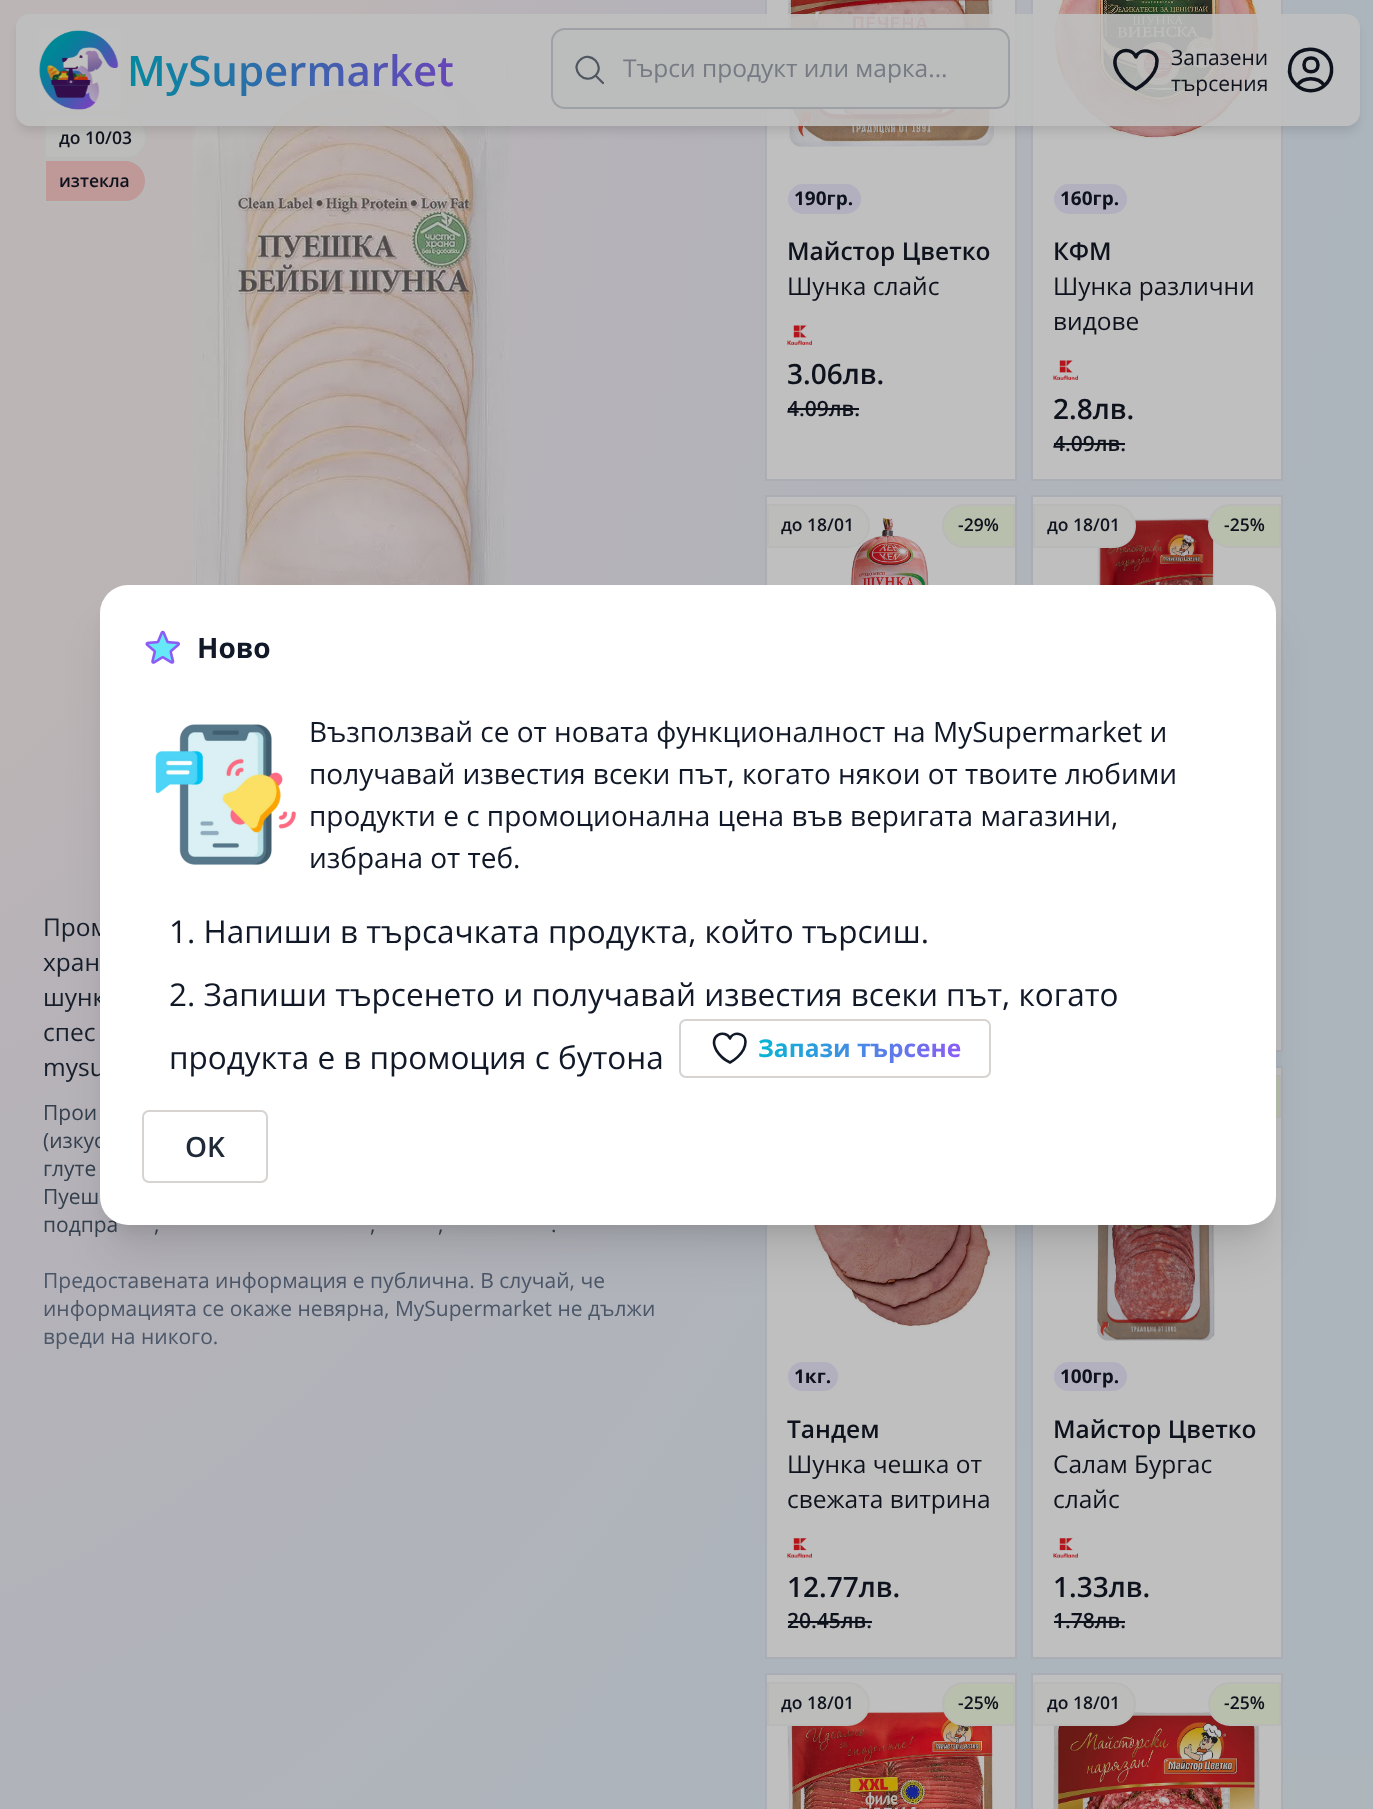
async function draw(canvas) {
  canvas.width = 1373
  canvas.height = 1809
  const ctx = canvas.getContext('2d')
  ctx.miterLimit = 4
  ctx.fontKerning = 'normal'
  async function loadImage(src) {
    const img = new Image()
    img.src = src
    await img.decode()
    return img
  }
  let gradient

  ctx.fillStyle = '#fff'
  ctx.fillRect(0, 0, 1373, 1809)
  gradient = ctx.createRadialGradient(-294, -118.02, 0, -294, -118.02, 4092)
  gradient.addColorStop(0, '#bcb5b5')
  gradient.addColorStop(0.15, '#bcb5b5')
  gradient.addColorStop(0.21, '#b6b2b8')
  gradient.addColorStop(0.41, '#acb4bc')
  ctx.fillStyle = gradient
  ctx.beginPath()
  ctx.rect(0, 0, 1373, 1809)
  ctx.save()
  ctx.clip()
  ctx.scale(1, 6449 / 4092)
  ctx.fillRect(0, 0, 1373, 1148)
  ctx.restore()
  gradient = ctx.createRadialGradient(1311, 1626.34, 0, 1311, 1626.34, 1427)
  gradient.addColorStop(0.06, '#b0bab3')
  gradient.addColorStop(0.8, '#b0bab300')
  ctx.fillStyle = gradient
  ctx.beginPath()
  ctx.rect(1116, 1757, 257, 52)
  ctx.save()
  ctx.clip()
  ctx.scale(1, 3472 / 1427)
  ctx.fillRect(0, 0, 1373, 744)
  ctx.restore()
  ctx.fillStyle = '#b9bfad'
  ctx.beginPath()
  ctx.roundRect(45, 50, 101, 65, [0, 32.5, 32.5, 0])
  ctx.fill()
  ctx.strokeStyle = '#b8b8b7'
  ctx.lineWidth = 2
  ctx.stroke()
  ctx.fillStyle = '#bcbcbb'
  ctx.beginPath()
  ctx.roundRect(45, 117, 101, 41, [0, 20.5, 20.5, 0])
  ctx.fill()
  ctx.stroke()
  ctx.drawImage(await loadImage('image1.png'), 192, 49, 317, 536)
  ctx.fillStyle = '#bfbfbf'
  ctx.beginPath()
  ctx.rect(766, -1, 250, 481)
  ctx.fill()
  ctx.strokeStyle = '#aaaeb4'
  ctx.stroke()
  ctx.drawImage(await loadImage('image2.png'), 788, 0, 206, 147)
  ctx.beginPath()
  ctx.rect(1032, -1, 250, 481)
  ctx.fill()
  ctx.stroke()
  ctx.drawImage(await loadImage('image4.png'), 1053, 0, 207, 139)
  ctx.save()
  ctx.beginPath()
  ctx.moveTo(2, 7)
  ctx.lineTo(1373, 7)
  ctx.lineTo(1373, 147)
  ctx.lineTo(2, 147)
  ctx.closePath()
  ctx.moveTo(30, 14)
  ctx.lineTo(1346, 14)
  ctx.bezierCurveTo(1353.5, 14, 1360, 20.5, 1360, 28)
  ctx.lineTo(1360, 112)
  ctx.bezierCurveTo(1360, 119.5, 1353.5, 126, 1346, 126)
  ctx.lineTo(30, 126)
  ctx.bezierCurveTo(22.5, 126, 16, 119.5, 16, 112)
  ctx.lineTo(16, 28)
  ctx.bezierCurveTo(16, 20.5, 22.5, 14, 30, 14)
  ctx.closePath()
  ctx.clip('evenodd')
  ctx.fillStyle = '#0000001a'
  ctx.filter = 'blur(5px)'
  ctx.beginPath()
  ctx.roundRect(18, 23, 1340, 108, 12)
  ctx.fill()
  ctx.filter = 'none'
  ctx.restore()
  ctx.fillStyle = '#bfbfbfe6'
  ctx.beginPath()
  ctx.roundRect(16, 14, 1344, 112, 14)
  ctx.fill()
  ctx.drawImage(await loadImage('image0.png'), 39, 30, 82, 80)
  ctx.font = '600 42px Open Sans'
  gradient = ctx.createLinearGradient(127, 70, 454, 70)
  gradient.addColorStop(0, '#05899f')
  gradient.addColorStop(1, '#6845b9')
  ctx.fillStyle = gradient
  ctx.fillText('MySupermarket', 127, 86)
  ctx.fillStyle = '#bbbcbc'
  ctx.beginPath()
  ctx.roundRect(552, 29, 457, 79, 13)
  ctx.fill()
  ctx.strokeStyle = '#9da0a4'
  ctx.stroke()
  ctx.beginPath()
  ctx.moveTo(603, 83)
  ctx.lineTo(595.5, 75.5)
  ctx.moveTo(595.5, 75.5)
  ctx.bezierCurveTo(605.5, 65.5, 590, 50, 580, 60)
  ctx.bezierCurveTo(569.5, 70, 585, 85.5, 595.5, 75.5)
  ctx.closePath()
  ctx.strokeStyle = '#505660'
  ctx.lineWidth = 2.2
  ctx.lineCap = 'round'
  ctx.lineJoin = 'round'
  ctx.stroke()
  ctx.font = '24.5px Open Sans'
  ctx.fillStyle = '#757a83'
  ctx.fillText('Търси продукт или марка...', 623, 77)
  ctx.beginPath()
  ctx.moveTo(1157, 61)
  ctx.bezierCurveTo(1157, 50, 1140, 47, 1136, 57)
  ctx.bezierCurveTo(1130, 43.5, 1106.5, 52, 1118, 72.5)
  ctx.bezierCurveTo(1122, 79.5, 1129, 85.5, 1136, 89)
  ctx.bezierCurveTo(1136, 89, 1157, 78, 1157, 61)
  ctx.closePath()
  ctx.strokeStyle = '#0d121d'
  ctx.lineWidth = 3.5
  ctx.stroke()
  ctx.font = '21px Open Sans'
  ctx.fillStyle = '#0d121d'
  ctx.fillText('Запазени', 1171, 65)
  ctx.fillText('търсения', 1171, 91)
  ctx.beginPath()
  ctx.moveTo(1324.5, 85.5)
  ctx.bezierCurveTo(1318, 76.5, 1303.5, 76.5, 1297, 85.5)
  ctx.moveTo(1324.5, 85.5)
  ctx.bezierCurveTo(1328.5, 82, 1331, 77, 1331.5, 72)
  ctx.bezierCurveTo(1334, 46, 1295.5, 40, 1290, 65.5)
  ctx.bezierCurveTo(1288.5, 73, 1291, 80.5, 1297, 85.5)
  ctx.moveTo(1324.5, 85.5)
  ctx.bezierCurveTo(1317, 92.5, 1304.5, 92.5, 1297, 85.5)
  ctx.moveTo(1318, 65)
  ctx.bezierCurveTo(1318, 74, 1304, 74, 1304, 65)
  ctx.bezierCurveTo(1304, 55.5, 1318, 55.5, 1318, 65)
  ctx.closePath()
  ctx.stroke()
  ctx.font = '600 17.5px Open Sans'
  ctx.fillText('до 10/03', 59, 144)
  ctx.fillStyle = '#bf9898'
  ctx.beginPath()
  ctx.roundRect(45, 160, 101, 42, [0, 21, 21, 0])
  ctx.fill()
  ctx.strokeStyle = '#b8b8b7'
  ctx.lineWidth = 2
  ctx.lineJoin = 'miter'
  ctx.stroke()
  ctx.fillStyle = '#0d121d'
  ctx.fillText('изтекла', 59, 187)
  ctx.font = '24.5px Open Sans'
  ctx.fillStyle = '#171f2c'
  ctx.fillText('Пром', 43, 936)
  ctx.fillText('хран', 43, 971)
  ctx.fillText('шунк', 43, 1006)
  ctx.fillText('спес', 43, 1041)
  ctx.fillText('mysu', 43, 1076)
  ctx.font = '21px Open Sans'
  ctx.fillStyle = '#35404f'
  ctx.fillText('Прои', 43, 1120)
  ctx.fillText('(изкус', 43, 1148)
  ctx.fillText('глуте', 43, 1176)
  ctx.fillText('Пуеш', 43, 1204)
  ctx.fillText('подпра', 43, 1232)
  ctx.fillText(',', 154, 1232)
  ctx.fillText(',', 370, 1232)
  ctx.fillText(',', 438, 1232)
  ctx.fillText('.', 551, 1232)
  ctx.fillStyle = '#4b5768'
  ctx.fillText('Предоставената информация е публична. В случай, че', 43, 1288)
  ctx.fillText('информацията се окаже невярна, MySupermarket не дължи', 43, 1316)
  ctx.fillText('вреди на никого.', 43, 1344)
  ctx.fillStyle = '#b2afbf'
  ctx.beginPath()
  ctx.roundRect(788, 184, 73, 30, 15)
  ctx.fill()
  ctx.font = 'bold 19px Open Sans'
  ctx.fillStyle = '#0d121d'
  ctx.fillText('190гр.', 794, 205)
  ctx.font = '600 24.5px Open Sans'
  ctx.fillText('Майстор Цветко', 787, 260)
  ctx.font = '24.5px Open Sans'
  ctx.fillText('Шунка слайс', 787, 295)
  ctx.drawImage(await loadImage('image3.png'), 787, 325, 25, 20)
  ctx.font = '600 28px Open Sans'
  ctx.fillText('3.06лв.', 787, 384)
  ctx.font = '600 21px Open Sans'
  ctx.fillText('4.09лв.', 787, 416)
  ctx.fillRect(788, 408, 71, 2)
  ctx.fillStyle = '#b2afbf'
  ctx.beginPath()
  ctx.roundRect(1054, 184, 73, 30, 15)
  ctx.fill()
  ctx.font = 'bold 19px Open Sans'
  ctx.fillStyle = '#0d121d'
  ctx.fillText('160гр.', 1060, 205)
  ctx.font = '600 24.5px Open Sans'
  ctx.fillText('КФМ', 1053, 260)
  ctx.font = '24.5px Open Sans'
  ctx.fillText('Шунка различни', 1053, 295)
  ctx.fillText('видове', 1053, 330)
  ctx.drawImage(await loadImage('image3.png'), 1053, 360, 25, 20)
  ctx.font = '600 28px Open Sans'
  ctx.fillText('2.8лв.', 1053, 419)
  ctx.font = '600 21px Open Sans'
  ctx.fillText('4.09лв.', 1053, 451)
  ctx.fillRect(1054, 443, 71, 2)
  ctx.fillStyle = '#bfbfbf'
  ctx.fillRect(767, 497, 248, 88)
  ctx.strokeStyle = '#aaaeb4'
  ctx.strokeRect(766, 496, 250, 555)
  ctx.drawImage(await loadImage('image5.png'), 850, 518, 80, 67)
  ctx.fillStyle = '#bcbcbb'
  ctx.beginPath()
  ctx.roundRect(768, 505, 101, 42, [0, 21, 21, 0])
  ctx.fill()
  ctx.strokeStyle = '#b8b8b7'
  ctx.stroke()
  ctx.font = '600 17.5px Open Sans'
  ctx.fillStyle = '#0d121d'
  ctx.fillText('до 18/01', 781, 531)
  ctx.fillStyle = '#b9bfad'
  ctx.beginPath()
  ctx.roundRect(943, 505, 71, 42, [21, 0, 0, 21])
  ctx.fill()
  ctx.stroke()
  ctx.fillStyle = '#0d121d'
  ctx.fillText('-29%', 958, 531)
  ctx.fillStyle = '#bfbfbf'
  ctx.beginPath()
  ctx.rect(1032, 496, 250, 555)
  ctx.fill()
  ctx.strokeStyle = '#aaaeb4'
  ctx.stroke()
  ctx.drawImage(await loadImage('image6.png'), 1097, 518, 118, 67)
  ctx.fillStyle = '#bcbcbb'
  ctx.beginPath()
  ctx.roundRect(1034, 505, 101, 42, [0, 21, 21, 0])
  ctx.fill()
  ctx.strokeStyle = '#b8b8b7'
  ctx.stroke()
  ctx.fillStyle = '#0d121d'
  ctx.fillText('до 18/01', 1047, 531)
  ctx.fillStyle = '#b9bfad'
  ctx.beginPath()
  ctx.roundRect(1209, 505, 71, 42, [21, 0, 0, 21])
  ctx.fill()
  ctx.stroke()
  ctx.fillStyle = '#0d121d'
  ctx.fillText('-25%', 1224, 531)
  ctx.fillStyle = '#bfbfbf'
  ctx.fillRect(767, 1225, 248, 432)
  ctx.strokeStyle = '#aaaeb4'
  ctx.strokeRect(766, 1067, 250, 591)
  ctx.drawImage(await loadImage('image7.png'), 787, 1225, 207, 102)
  ctx.fillStyle = '#b2afbf'
  ctx.beginPath()
  ctx.roundRect(788, 1362, 50, 29, 14.5)
  ctx.fill()
  ctx.font = 'bold 19px Open Sans'
  ctx.fillStyle = '#0d121d'
  ctx.fillText('1кг.', 794, 1383)
  ctx.font = '600 24.5px Open Sans'
  ctx.fillText('Тандем', 787, 1438)
  ctx.font = '24.5px Open Sans'
  ctx.fillText('Шунка чешка от', 787, 1473)
  ctx.fillText('свежата витрина', 787, 1508)
  ctx.drawImage(await loadImage('image8.png'), 787, 1538, 25, 20)
  ctx.font = '600 28px Open Sans'
  ctx.fillText('12.77лв.', 787, 1597)
  ctx.font = '600 21px Open Sans'
  ctx.fillText('20.45лв.', 787, 1628)
  ctx.fillRect(788, 1621, 84, 2)
  ctx.fillStyle = '#bfbfbf'
  ctx.beginPath()
  ctx.rect(1032, 1067, 250, 591)
  ctx.fill()
  ctx.stroke()
  ctx.fillStyle = '#b9bfad'
  ctx.fillRect(1276, 1077, 3, 39)
  ctx.strokeStyle = '#b8b8b7'
  ctx.strokeRect(1209, 1076, 71, 41)
  ctx.drawImage(await loadImage('image9.png'), 1097, 1225, 118, 116)
  ctx.fillStyle = '#b2afbf'
  ctx.beginPath()
  ctx.roundRect(1054, 1362, 73, 29, 14.5)
  ctx.fill()
  ctx.font = 'bold 19px Open Sans'
  ctx.fillStyle = '#0d121d'
  ctx.fillText('100гр.', 1060, 1383)
  ctx.font = '600 24.5px Open Sans'
  ctx.fillText('Майстор Цветко', 1053, 1438)
  ctx.font = '24.5px Open Sans'
  ctx.fillText('Салам Бургас', 1053, 1473)
  ctx.fillText('слайс', 1053, 1508)
  ctx.drawImage(await loadImage('image8.png'), 1053, 1538, 25, 20)
  ctx.font = '600 28px Open Sans'
  ctx.fillText('1.33лв.', 1053, 1597)
  ctx.font = '600 21px Open Sans'
  ctx.fillText('1.78лв.', 1053, 1628)
  ctx.fillRect(1054, 1621, 71, 2)
  ctx.fillStyle = '#bfbfbf'
  ctx.beginPath()
  ctx.rect(766, 1674, 250, 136)
  ctx.fill()
  ctx.strokeStyle = '#aaaeb4'
  ctx.stroke()
  ctx.drawImage(await loadImage('image10.png'), 787, 1710, 206, 99)
  ctx.fillStyle = '#bcbcbb'
  ctx.beginPath()
  ctx.roundRect(768, 1683, 101, 42, [0, 21, 21, 0])
  ctx.fill()
  ctx.strokeStyle = '#b8b8b7'
  ctx.stroke()
  ctx.font = '600 17.5px Open Sans'
  ctx.fillStyle = '#0d121d'
  ctx.fillText('до 18/01', 781, 1709)
  ctx.fillStyle = '#b9bfad'
  ctx.beginPath()
  ctx.roundRect(943, 1683, 71, 42, [21, 0, 0, 21])
  ctx.fill()
  ctx.stroke()
  ctx.fillStyle = '#0d121d'
  ctx.fillText('-25%', 958, 1709)
  ctx.fillStyle = '#bfbfbf'
  ctx.beginPath()
  ctx.rect(1032, 1674, 250, 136)
  ctx.fill()
  ctx.strokeStyle = '#aaaeb4'
  ctx.stroke()
  ctx.drawImage(await loadImage('image11.png'), 1053, 1711, 207, 98)
  ctx.fillStyle = '#bcbcbb'
  ctx.beginPath()
  ctx.roundRect(1034, 1683, 101, 42, [0, 21, 21, 0])
  ctx.fill()
  ctx.strokeStyle = '#b8b8b7'
  ctx.stroke()
  ctx.fillStyle = '#0d121d'
  ctx.fillText('до 18/01', 1047, 1709)
  ctx.fillStyle = '#b9bfad'
  ctx.beginPath()
  ctx.roundRect(1209, 1683, 71, 42, [21, 0, 0, 21])
  ctx.fill()
  ctx.stroke()
  ctx.fillStyle = '#0d121d'
  ctx.fillText('-25%', 1224, 1709)
  ctx.fillStyle = '#0000001a'
  ctx.filter = 'blur(9px)'
  ctx.beginPath()
  ctx.roundRect(110, 609, 1155, 620, 18)
  ctx.fill()
  ctx.filter = 'none'
  ctx.filter = 'blur(22px)'
  ctx.beginPath()
  ctx.roundRect(109, 628, 1158, 623, 19)
  ctx.fill()
  ctx.filter = 'none'
  ctx.fillStyle = '#fff'
  ctx.beginPath()
  ctx.roundRect(100, 585, 1176, 640, 28)
  ctx.fill()
  ctx.drawImage(await loadImage('image12.png'), 145, 630, 35, 34)
  ctx.font = 'bold 28px Open Sans'
  ctx.fillStyle = '#111827'
  ctx.fillText('Ново', 197, 658)
  ctx.drawImage(await loadImage('image13.png'), 155, 724, 141, 141)
  ctx.font = '28px Open Sans'
  ctx.fillText('Възползвай се от новата функционалност на MySupermarket и', 309, 742)
  ctx.fillText('получавай известия всеки път, когато някои от твоите любими', 309, 784)
  ctx.fillText('продукти е с промоционална цена във веригата магазини,', 309, 826)
  ctx.fillText('избрана от теб.', 309, 868)
  ctx.font = '31.5px Open Sans'
  ctx.fillText('1. Напиши в търсачката продукта, който търсиш.', 169, 943)
  ctx.fillText('2. Запиши търсенето и получавай известия всеки път, когато', 169, 1006)
  ctx.fillText('продукта е в промоция с бутона', 169, 1069)
  ctx.beginPath()
  ctx.roundRect(680, 1020, 310, 57, 6)
  ctx.strokeStyle = '#d6d3d1'
  ctx.stroke()
  ctx.beginPath()
  ctx.moveTo(745.5, 1041.5)
  ctx.bezierCurveTo(745.5, 1033, 733, 1031, 730, 1038.5)
  ctx.bezierCurveTo(725.5, 1029, 707.5, 1034.5, 716.5, 1050.5)
  ctx.bezierCurveTo(719.5, 1055.5, 724.5, 1060, 730, 1062.5)
  ctx.bezierCurveTo(730, 1062.5, 745.5, 1054.5, 745.5, 1041.5)
  ctx.closePath()
  ctx.strokeStyle = '#111827'
  ctx.lineWidth = 2.6
  ctx.lineJoin = 'round'
  ctx.stroke()
  ctx.font = 'bold 24.5px Open Sans'
  gradient = ctx.createLinearGradient(758, 1048, 961, 1048)
  gradient.addColorStop(0, '#06b6d4')
  gradient.addColorStop(1, '#8b5cf6')
  ctx.fillStyle = gradient
  ctx.fillText('Запази търсене', 758, 1057)
  ctx.beginPath()
  ctx.roundRect(143, 1111, 124, 71, 6)
  ctx.strokeStyle = '#d6d3d1'
  ctx.lineWidth = 2
  ctx.lineJoin = 'miter'
  ctx.stroke()
  ctx.font = '600 28px Open Sans'
  ctx.fillStyle = '#1f2937'
  ctx.fillText('OK', 185, 1157)
}

draw(document.querySelector('canvas'))
